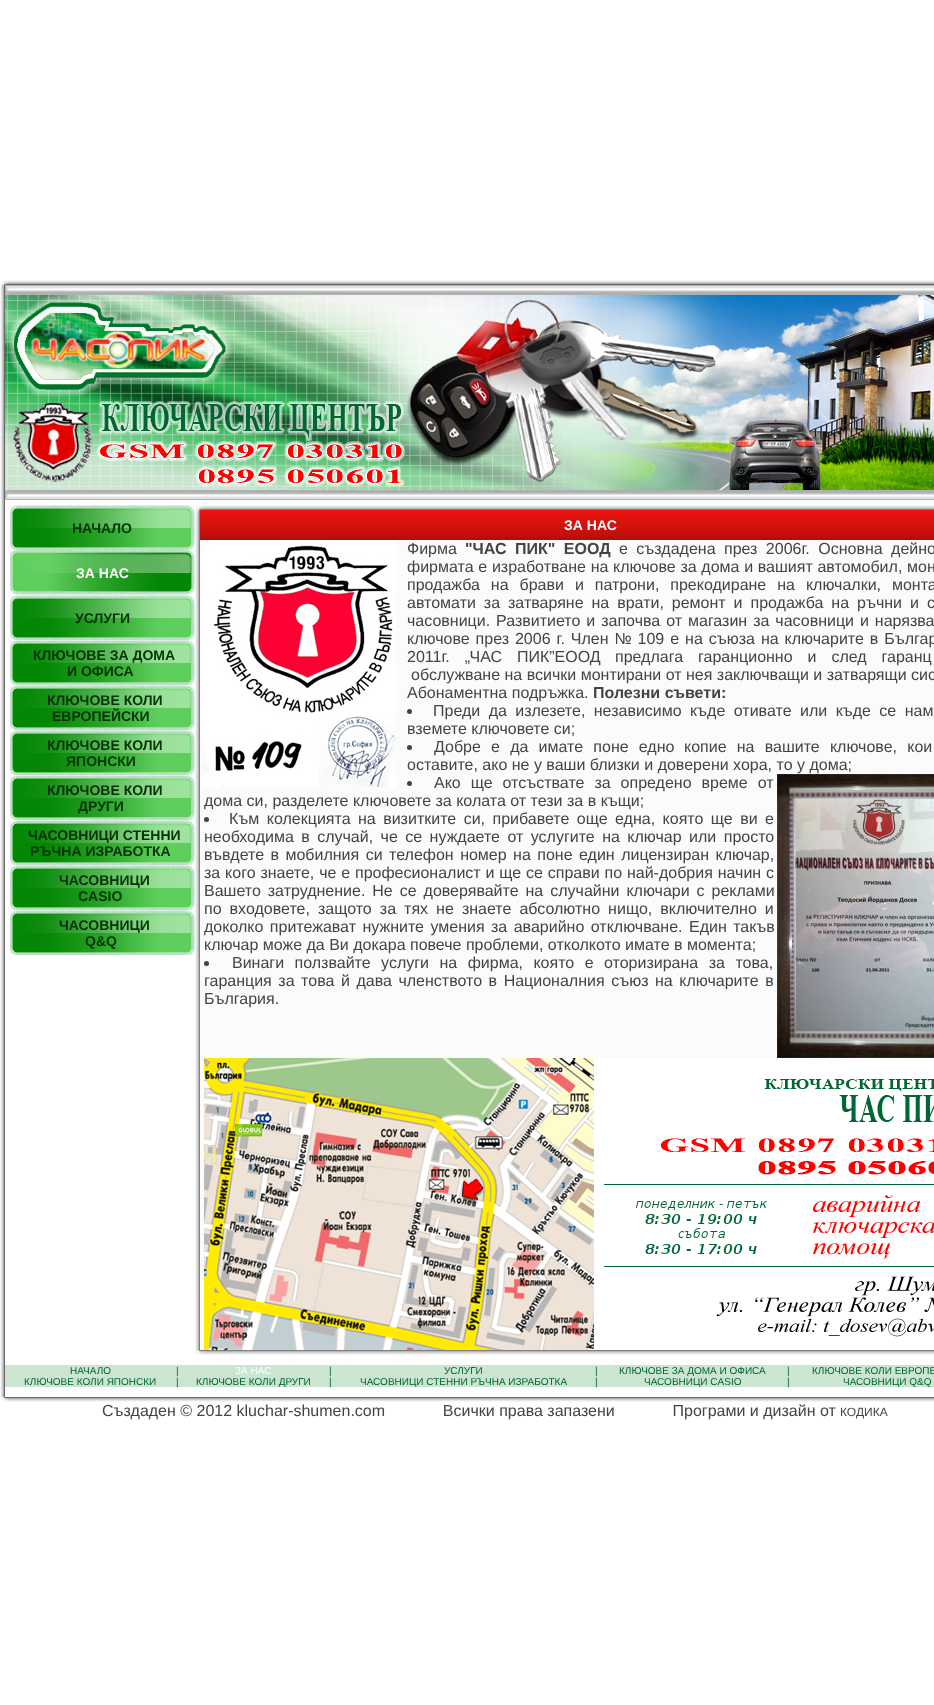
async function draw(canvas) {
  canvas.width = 934
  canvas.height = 1705
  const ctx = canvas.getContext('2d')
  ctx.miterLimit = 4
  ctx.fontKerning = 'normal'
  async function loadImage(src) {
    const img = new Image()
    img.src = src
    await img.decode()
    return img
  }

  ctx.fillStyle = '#fff'
  ctx.fillRect(0, 0, 934, 1705)
  ctx.drawImage(await loadImage('image0.png'), 1, 280, 933, 5)
  ctx.drawImage(await loadImage('image1.png'), 0, 285, 5, 1070)
  ctx.drawImage(await loadImage('image2.png'), 5, 285, 929, 10)
  ctx.drawImage(await loadImage('image3.png'), 5, 295, 929, 195)
  ctx.drawImage(await loadImage('image4.png'), 5, 490, 929, 10)
  ctx.drawImage(await loadImage('image5.png'), 10, 505, 185, 45)
  ctx.font = 'bold 14px Liberation Sans'
  ctx.fillStyle = '#030'
  ctx.fillText('НАЧАЛО', 72, 533)
  ctx.drawImage(await loadImage('image6.png'), 10, 550, 185, 45)
  ctx.fillStyle = '#fff'
  ctx.fillText('ЗА НАС', 76, 578)
  ctx.drawImage(await loadImage('image5.png'), 10, 595, 185, 45)
  ctx.fillStyle = '#030'
  ctx.fillText('УСЛУГИ', 75, 623)
  ctx.drawImage(await loadImage('image5.png'), 10, 640, 185, 45)
  ctx.fillText('КЛЮЧОВЕ ЗА ДОМА', 33, 660)
  ctx.fillText('И ОФИСА', 67, 676)
  ctx.drawImage(await loadImage('image5.png'), 10, 685, 185, 45)
  ctx.fillText('КЛЮЧОВЕ КОЛИ', 47, 705)
  ctx.fillText('ЕВРОПЕЙСКИ', 52, 721)
  ctx.drawImage(await loadImage('image5.png'), 10, 730, 185, 45)
  ctx.fillText('КЛЮЧОВЕ КОЛИ', 47, 750)
  ctx.fillText('ЯПОНСКИ', 66, 766)
  ctx.drawImage(await loadImage('image5.png'), 10, 775, 185, 45)
  ctx.fillText('КЛЮЧОВЕ КОЛИ', 47, 795)
  ctx.fillText('ДРУГИ', 78, 811)
  ctx.drawImage(await loadImage('image5.png'), 10, 820, 185, 45)
  ctx.fillText('ЧАСОВНИЦИ СТЕННИ', 28, 840)
  ctx.fillText('РЪЧНА ИЗРАБОТКА', 30, 856)
  ctx.drawImage(await loadImage('image5.png'), 10, 865, 185, 45)
  ctx.fillText('ЧАСОВНИЦИ', 59, 885)
  ctx.fillText('CASIO', 78, 901)
  ctx.drawImage(await loadImage('image5.png'), 10, 910, 185, 45)
  ctx.fillText('ЧАСОВНИЦИ', 59, 930)
  ctx.fillText('Q&Q', 85, 946)
  ctx.fillStyle = '#fbfbfb'
  ctx.fillRect(195, 505, 739, 850)
  ctx.drawImage(await loadImage('image7.png'), 196, 505, 738, 5)
  ctx.drawImage(await loadImage('image8.png'), 195, 510, 739, 30)
  ctx.fillStyle = '#fff'
  ctx.fillText('ЗА НАС', 564, 530)
  ctx.drawImage(await loadImage('image9.png'), 195, 540, 5, 810)
  ctx.drawImage(await loadImage('image10.png'), 204, 540, 192, 247)
  ctx.font = '16px Liberation Sans'
  ctx.fillStyle = '#444'
  ctx.fillText('Фирма', 407, 554)
  ctx.wordSpacing = '4px'
  ctx.font = 'bold 16px Liberation Sans'
  ctx.fillText('"ЧАС ПИК" ЕООД', 465, 554)
  ctx.font = '16px Liberation Sans'
  ctx.fillText('е създадена през 2006г. Основна дейно', 619, 554)
  ctx.wordSpacing = '0.25px'
  ctx.fillText('фирмата е изработване на ключове за дома и вашият автомобил, мон', 407, 572)
  ctx.wordSpacing = '6.5px'
  ctx.fillText('продажба на брави и патрони, прекодиране на ключалки, монта', 407, 590)
  ctx.wordSpacing = '3.5px'
  ctx.fillText('автомати за затваряне на врати, ремонт и продажба на ръчни и с', 407, 608)
  ctx.wordSpacing = '1.5px'
  ctx.fillText('часовници. Развитието и започва от магазин за часовници и нарязва', 407, 626)
  ctx.fillText('ключове през 2006 г. Член № 109 е на съюза на ключарите в Българ', 407, 644)
  ctx.wordSpacing = '10.5px'
  ctx.fillText('2011г. „ЧАС ПИК”ЕООД', 407, 662)
  ctx.fillText('предлага гаранционно и след гаранц', 615, 662)
  ctx.wordSpacing = '0px'
  ctx.fillText('обслужване на всички монтирани от нея заключващи и затварящи сис', 411, 680)
  ctx.fillText('Абонаментна подръжка.', 407, 698)
  ctx.font = 'bold 16px Liberation Sans'
  ctx.fillText('Полезни съвети:', 593, 698)
  ctx.beginPath()
  ctx.arc(409.5, 711.5, 2.5, 0, 2 * Math.PI)
  ctx.fill()
  ctx.wordSpacing = '4px'
  ctx.font = '16px Liberation Sans'
  ctx.fillText('Преди да излезете, независимо къде отивате или къде се нам', 433, 716)
  ctx.wordSpacing = '0px'
  ctx.fillText('вземете ключовете си;', 407, 734)
  ctx.beginPath()
  ctx.arc(409.5, 747.5, 2.5, 0, 2 * Math.PI)
  ctx.fill()
  ctx.wordSpacing = '5.75px'
  ctx.fillText('Добре е да имате поне едно', 434, 752)
  ctx.fillText('копие на вашите ключове, кои', 684, 752)
  ctx.wordSpacing = '0px'
  ctx.fillText('оставите, ако не у ваши близки и доверени хора, то у дома;', 407, 770)
  ctx.beginPath()
  ctx.arc(409.5, 783.5, 2.5, 0, 2 * Math.PI)
  ctx.fill()
  ctx.wordSpacing = '5.5px'
  ctx.fillText('Ако ще отсъствате за опредено време от', 434, 788)
  ctx.wordSpacing = '0px'
  ctx.fillText('дома си, разделете ключовете за колата от тези за в къщи;', 204, 806)
  ctx.drawImage(await loadImage('image11.png'), 777, 774, 157, 284)
  ctx.beginPath()
  ctx.arc(206.5, 819.5, 2.5, 0, 2 * Math.PI)
  ctx.fill()
  ctx.wordSpacing = '3px'
  ctx.fillText('Към колекцията на визитките си, прибавете още една, която ще ви е', 229, 824)
  ctx.fillText('необходима в случай, че се нуждаете от услугите на ключар или просто', 204, 842)
  ctx.wordSpacing = '2px'
  ctx.fillText('въвдете в мобилния си телефон номер на поне един лицензиран ключар,', 204, 860)
  ctx.wordSpacing = '0.4px'
  ctx.fillText('за кого знаете, че е професионалист и ще се справи по най-добрия начин с', 204, 878)
  ctx.wordSpacing = '2.5px'
  ctx.fillText('Вашето затруднение. Не се доверявайте на случайни ключари с реклами', 204, 896)
  ctx.wordSpacing = '3.6px'
  ctx.fillText('по входовете, защото за тях не знаете абсолютно нищо, включително и', 204, 914)
  ctx.wordSpacing = '2px'
  ctx.fillText('доколко притежават нужните умения за аварийно отключване. Един такъв', 204, 932)
  ctx.wordSpacing = '0px'
  ctx.fillText('ключар може да Ви докара повече проблеми, отколкото имате в момента;', 204, 950)
  ctx.beginPath()
  ctx.arc(206.5, 963.5, 2.5, 0, 2 * Math.PI)
  ctx.fill()
  ctx.wordSpacing = '6px'
  ctx.fillText('Винаги ползвайте услуги на фирма, която е оторизирана за това,', 232, 968)
  ctx.wordSpacing = '2.1px'
  ctx.fillText('гаранция за това й дава членството в Националния съюз на ключарите в', 204, 986)
  ctx.wordSpacing = '0px'
  ctx.fillText('България.', 204, 1004)
  ctx.drawImage(await loadImage('image12.png'), 204, 1058, 730, 292)
  ctx.drawImage(await loadImage('image13.png'), 196, 1350, 738, 5)
  ctx.drawImage(await loadImage('image14.png'), 0, 1355, 5, 10)
  ctx.drawImage(await loadImage('image15.png'), 0, 1365, 5, 22)
  ctx.fillStyle = '#cbe5d0'
  ctx.fillRect(5, 1365, 929, 22)
  ctx.font = '10px Liberation Sans'
  ctx.fillStyle = '#063'
  ctx.fillText('НАЧАЛО', 70, 1374)
  ctx.fillText('|', 176, 1374)
  ctx.fillStyle = '#fff'
  ctx.fillText('ЗА НАС', 235, 1374)
  ctx.fillStyle = '#063'
  ctx.fillText('|', 329, 1374)
  ctx.fillText('УСЛУГИ', 444, 1374)
  ctx.fillText('|', 595, 1374)
  ctx.fillText('КЛЮЧОВЕ ЗА ДОМА И ОФИСА', 619, 1374)
  ctx.fillText('|', 787, 1374)
  ctx.fillText('КЛЮЧОВЕ КОЛИ ЕВРОПЕ', 812, 1374)
  ctx.fillText('КЛЮЧОВЕ КОЛИ ЯПОНСКИ', 24, 1385)
  ctx.fillText('|', 176, 1385)
  ctx.fillText('КЛЮЧОВЕ КОЛИ ДРУГИ', 196, 1385)
  ctx.fillText('|', 329, 1385)
  ctx.fillText('ЧАСОВНИЦИ СТЕННИ РЪЧНА ИЗРАБОТКА', 360, 1385)
  ctx.fillText('|', 595, 1385)
  ctx.fillText('ЧАСОВНИЦИ CASIO', 644, 1385)
  ctx.fillText('|', 787, 1385)
  ctx.fillText('ЧАСОВНИЦИ Q&Q', 843, 1385)
  ctx.drawImage(await loadImage('image14.png'), 0, 1387, 5, 10)
  ctx.drawImage(await loadImage('image16.png'), 1, 1397, 933, 5)
  ctx.font = '16px Liberation Sans'
  ctx.fillStyle = '#444'
  ctx.fillText('Създаден © 2012 kluchar-shumen.com             Всички права запазени             Програми и дизайн от', 102, 1416)
  ctx.font = '12px Liberation Sans'
  ctx.fillText('КОДИКА', 840, 1416)
}

draw(document.querySelector('canvas'))
